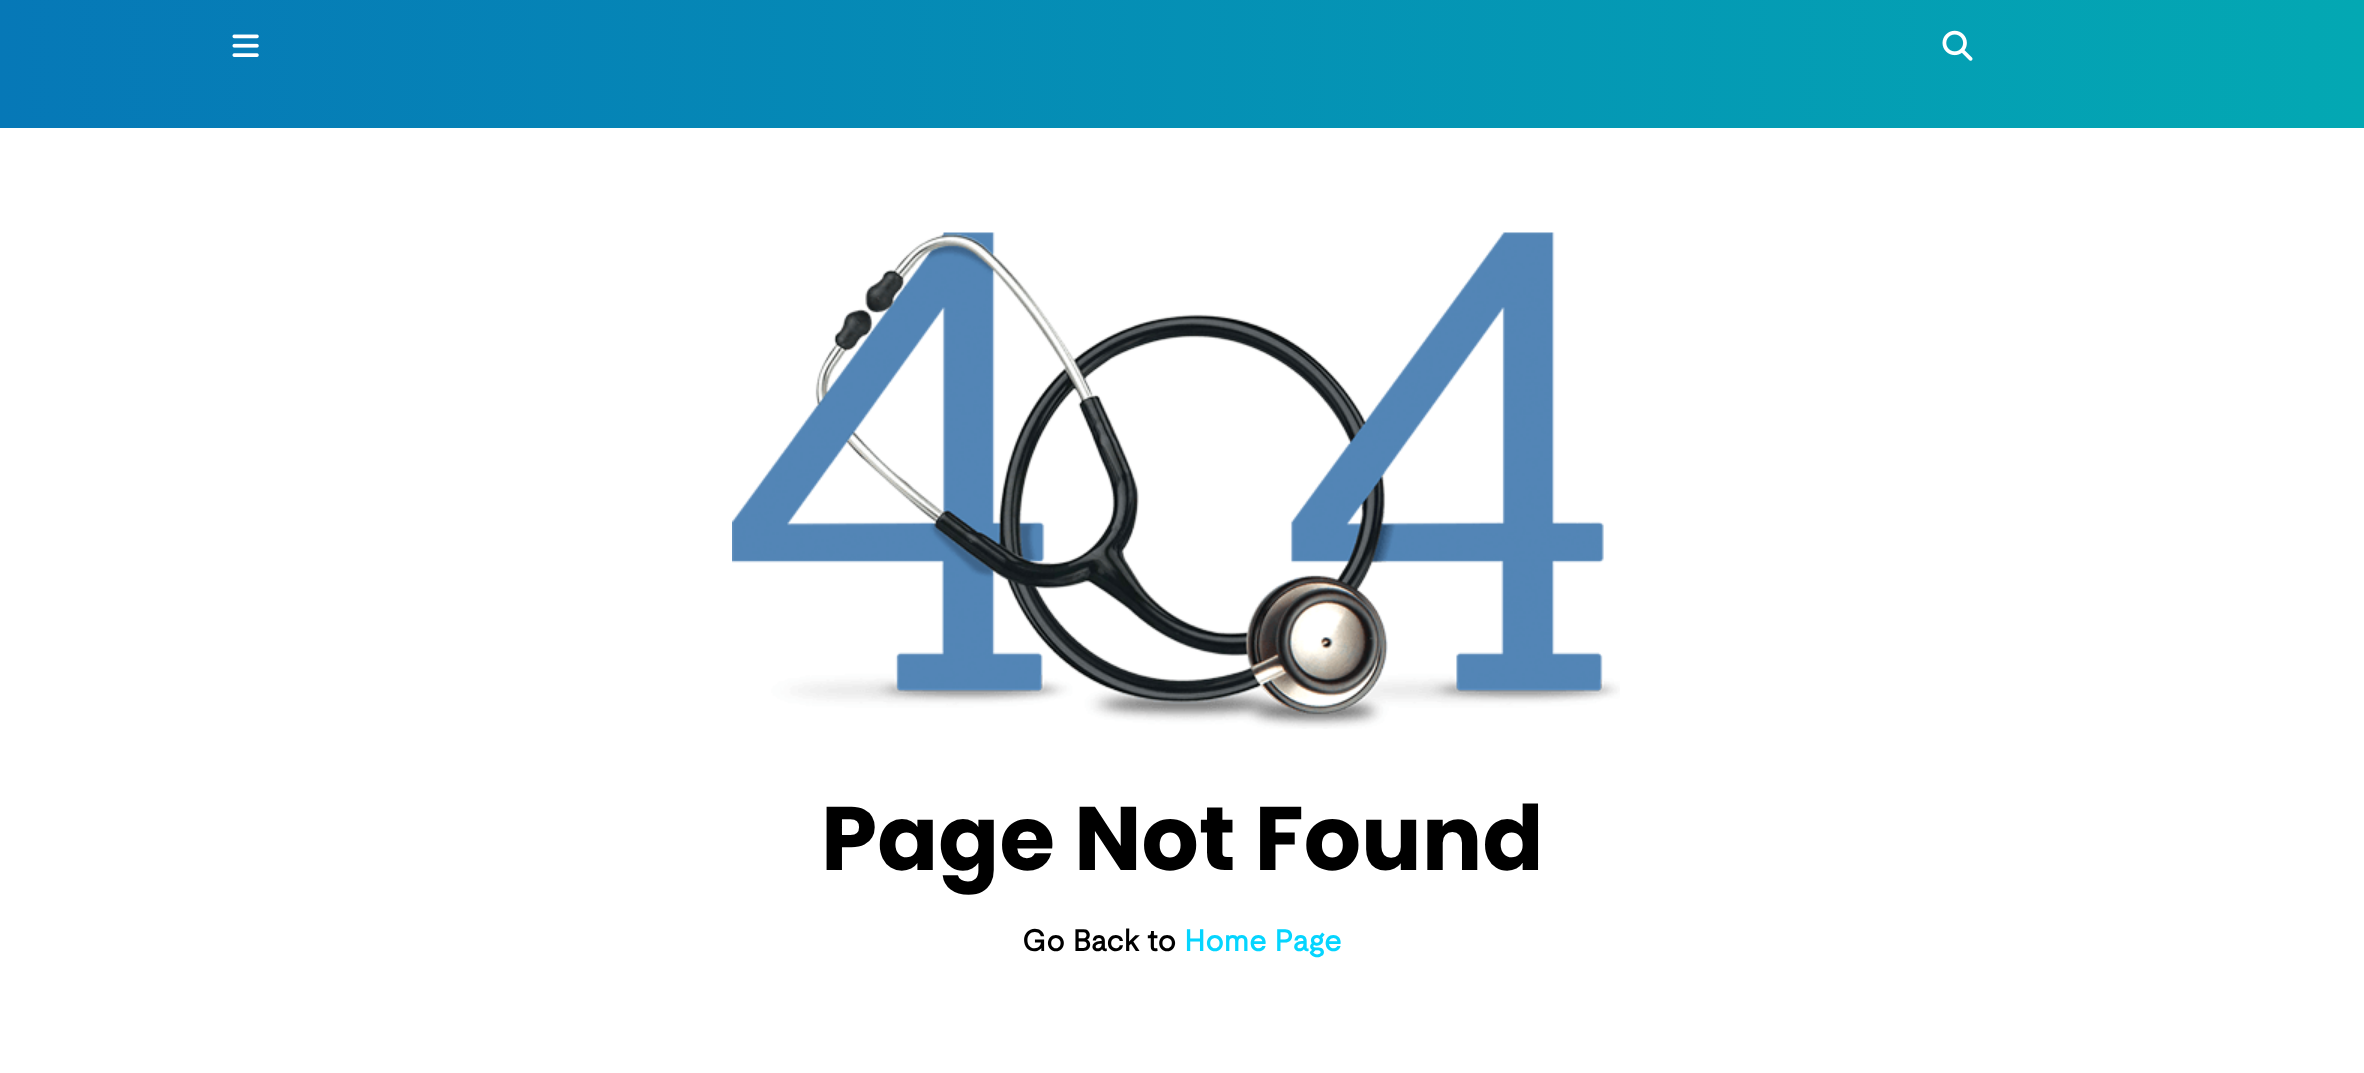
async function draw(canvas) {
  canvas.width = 2364
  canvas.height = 1073
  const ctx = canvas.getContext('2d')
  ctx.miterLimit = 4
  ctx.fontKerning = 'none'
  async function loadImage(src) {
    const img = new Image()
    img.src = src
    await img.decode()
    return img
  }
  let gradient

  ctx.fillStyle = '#fff'
  ctx.fillRect(0, 0, 2364, 1073)
  gradient = ctx.createLinearGradient(0, 64, 2364, 64)
  gradient.addColorStop(0, '#0678b7')
  gradient.addColorStop(1, '#03a8b3')
  ctx.fillStyle = gradient
  ctx.fillRect(0, 0, 2364, 128)
  ctx.drawImage(await loadImage('image0.png'), 232, 34, 27, 23)
  ctx.drawImage(await loadImage('image1.png'), 1942, 30, 31, 31)
  ctx.drawImage(await loadImage('image2.png'), 732, 232, 888, 497)
  ctx.font = 'bold 90px Poppins'
  ctx.fillStyle = '#000'
  ctx.fillText('Page Not Found', 821, 870)
  ctx.font = 'bold 30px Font'
  ctx.fillText('Go Back to', 1022, 951)
  ctx.fillStyle = '#05d5ff'
  ctx.fillText('Home Page', 1184, 951)
}

draw(document.querySelector('canvas'))
